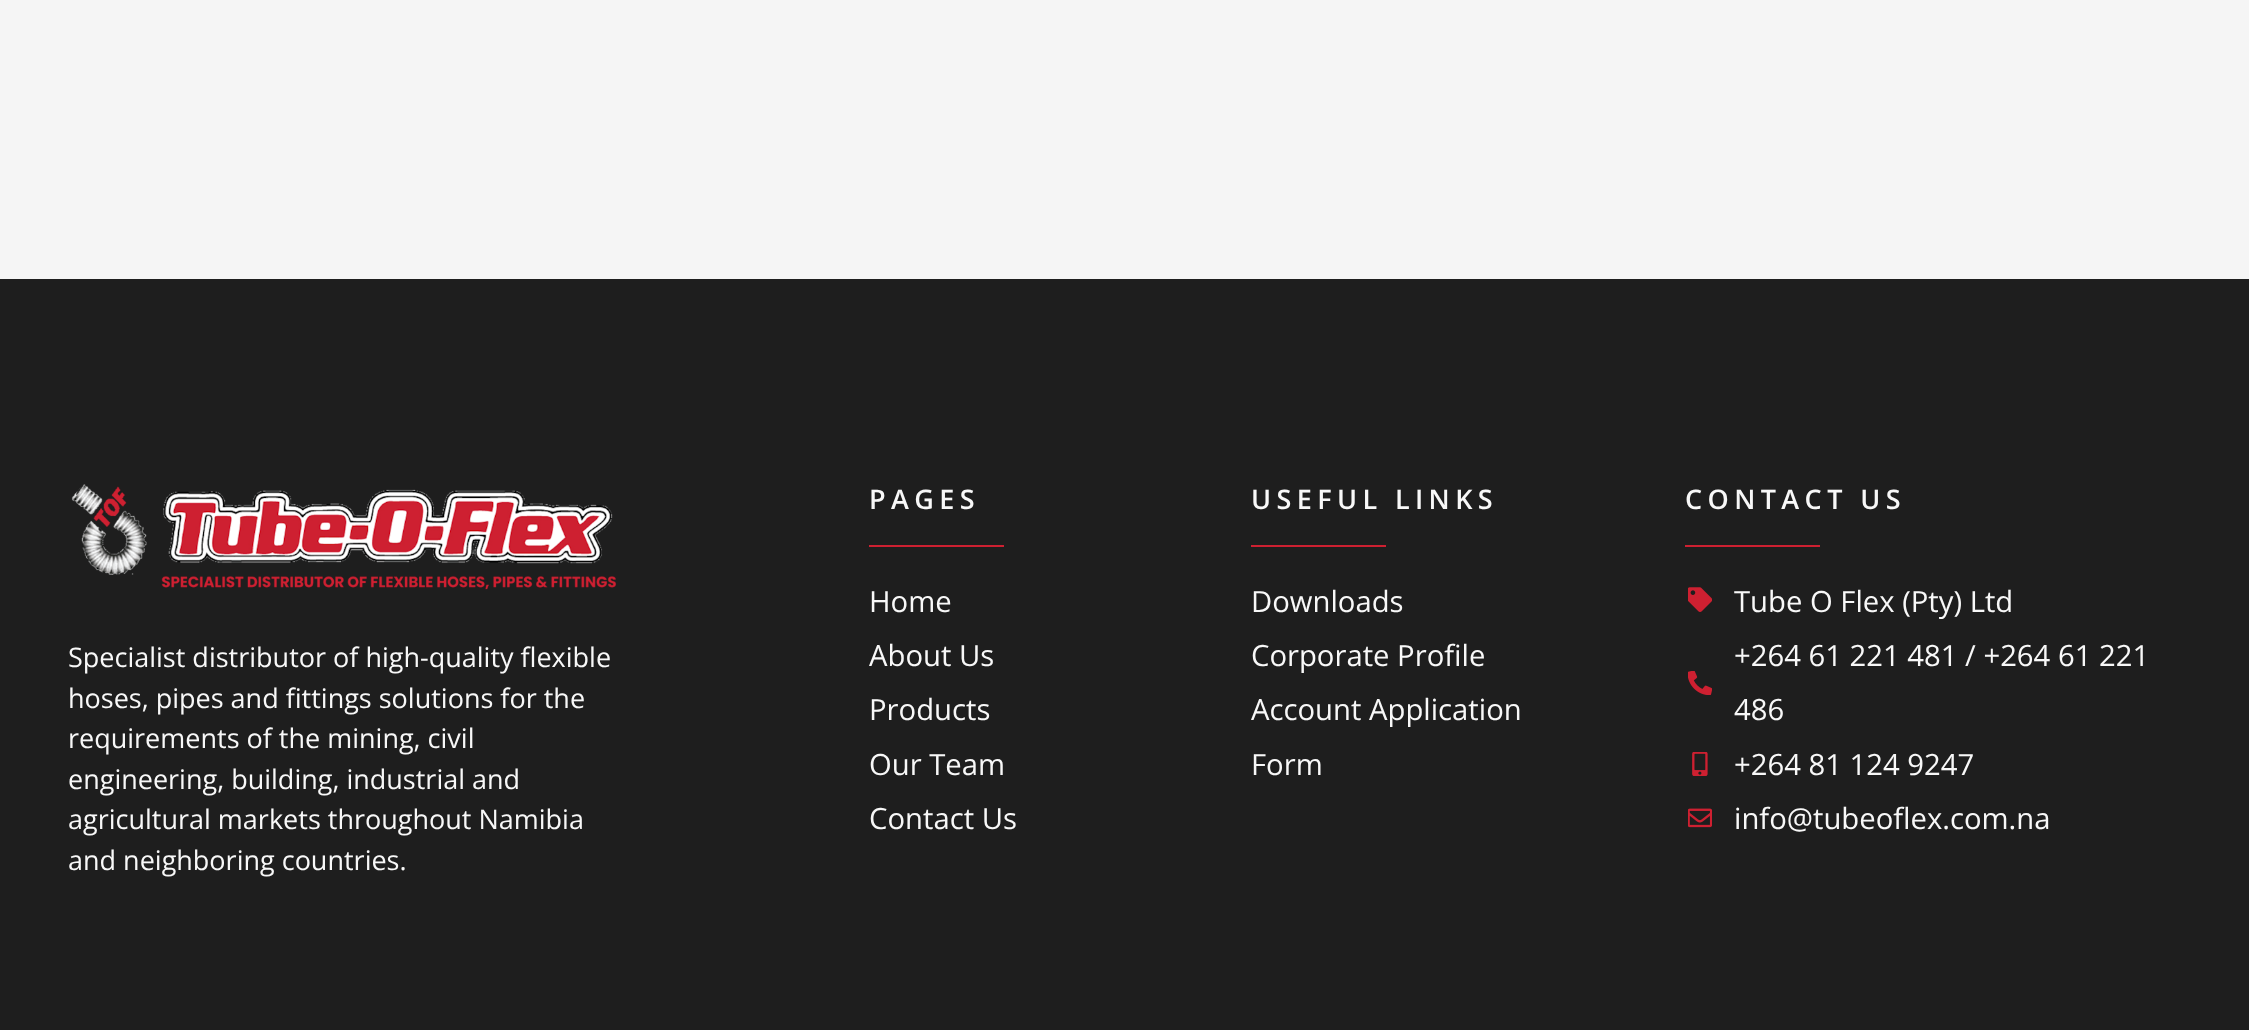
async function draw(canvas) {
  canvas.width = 2249
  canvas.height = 1030
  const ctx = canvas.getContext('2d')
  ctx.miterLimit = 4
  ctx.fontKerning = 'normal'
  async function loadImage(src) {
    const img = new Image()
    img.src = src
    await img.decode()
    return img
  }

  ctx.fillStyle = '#f5f5f5'
  ctx.fillRect(0, 0, 2249, 1030)
  ctx.fillStyle = '#1e1e1e'
  ctx.fillRect(0, 279, 2249, 751)
  ctx.drawImage(await loadImage('image0.png'), 71, 484, 546, 106)
  ctx.font = '27px Open Sans'
  ctx.fillStyle = '#f8f8f8'
  ctx.fillText('Specialist distributor of high-quality flexible', 68, 667)
  ctx.fillText('hoses, pipes and fittings solutions for the', 68, 708)
  ctx.fillText('requirements of the mining, civil', 68, 748)
  ctx.fillText('engineering, building, industrial and', 68, 789)
  ctx.fillText('agricultural markets throughout Namibia', 68, 829)
  ctx.fillText('and neighboring countries.', 68, 870)
  ctx.letterSpacing = '5.4px'
  ctx.font = '600 27px Open Sans'
  ctx.fillText('PAGES', 869, 509)
  ctx.fillStyle = '#ce2031'
  ctx.fillRect(869, 545, 135, 2)
  ctx.letterSpacing = '0px'
  ctx.font = '29.25px Open Sans'
  ctx.fillStyle = '#f8f8f8'
  ctx.fillText('Home', 869, 612)
  ctx.fillText('About Us', 869, 666)
  ctx.fillText('Products', 869, 720)
  ctx.fillText('Our Team', 869, 775)
  ctx.fillText('Contact Us', 869, 829)
  ctx.letterSpacing = '5.4px'
  ctx.font = '600 27px Open Sans'
  ctx.fillText('USEFUL LINKS', 1251, 509)
  ctx.fillStyle = '#ce2031'
  ctx.fillRect(1251, 545, 135, 2)
  ctx.letterSpacing = '0px'
  ctx.font = '29.25px Open Sans'
  ctx.fillStyle = '#f8f8f8'
  ctx.fillText('Downloads', 1251, 612)
  ctx.fillText('Corporate Profile', 1251, 666)
  ctx.fillText('Account Application', 1251, 720)
  ctx.fillText('Form', 1251, 775)
  ctx.letterSpacing = '5.4px'
  ctx.font = '600 27px Open Sans'
  ctx.fillText('CONTACT US', 1685, 509)
  ctx.fillStyle = '#ce2031'
  ctx.fillRect(1685, 545, 135, 2)
  ctx.drawImage(await loadImage('image1.png'), 1688, 587, 24, 25)
  ctx.letterSpacing = '0px'
  ctx.font = '29.25px Open Sans'
  ctx.fillStyle = '#f8f8f8'
  ctx.fillText('Tube O Flex (Pty) Ltd', 1734, 612)
  ctx.drawImage(await loadImage('image2.png'), 1688, 671, 24, 24)
  ctx.fillText('+264 61 221 481 / +264 61 221', 1734, 666)
  ctx.fillText('486', 1734, 720)
  ctx.drawImage(await loadImage('image3.png'), 1692, 752, 16, 24)
  ctx.fillText('+264 81 124 9247', 1734, 775)
  ctx.drawImage(await loadImage('image4.png'), 1688, 808, 24, 20)
  ctx.fillText('info@tubeoflex.com.na', 1734, 829)
}

draw(document.querySelector('canvas'))
